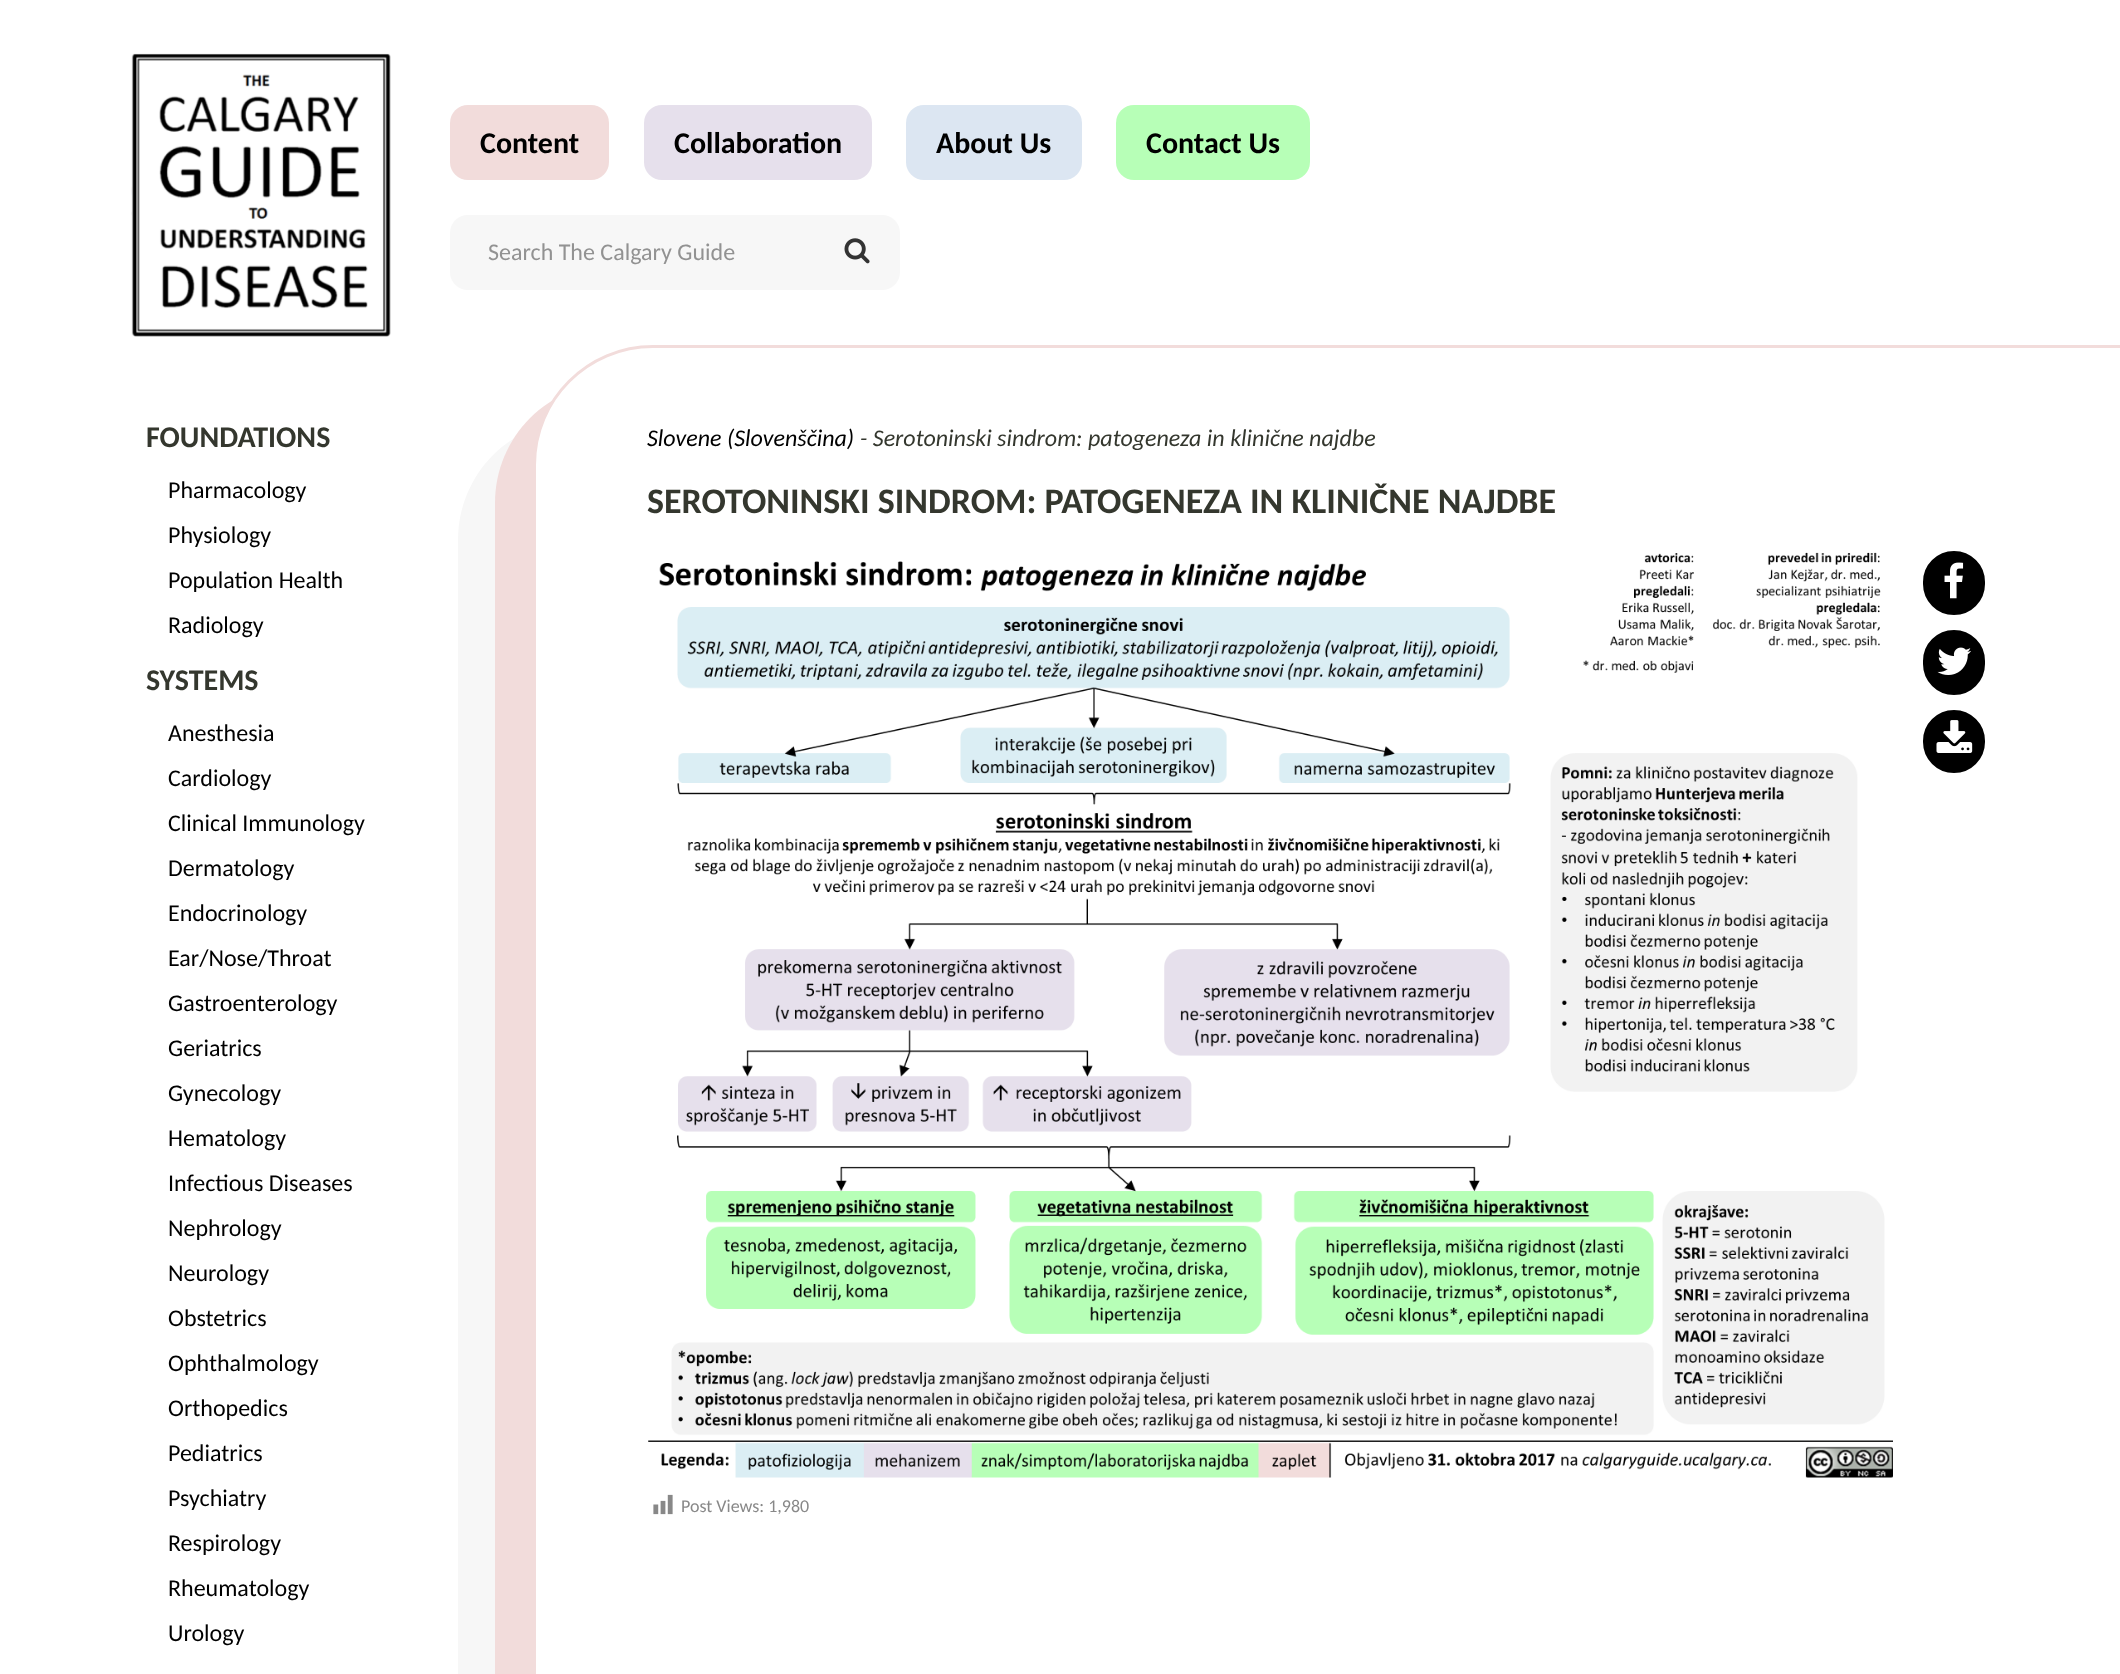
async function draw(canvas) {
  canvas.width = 2120
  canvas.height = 1674
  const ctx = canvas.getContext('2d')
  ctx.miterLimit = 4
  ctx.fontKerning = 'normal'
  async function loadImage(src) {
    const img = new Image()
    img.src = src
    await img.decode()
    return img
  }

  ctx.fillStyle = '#fff'
  ctx.fillRect(0, 0, 2120, 1674)
  ctx.drawImage(await loadImage('image0.png'), 131, 53, 260, 284)
  ctx.fillStyle = '#f2dcdb'
  ctx.beginPath()
  ctx.roundRect(450, 105, 159, 75, 18)
  ctx.fill()
  ctx.font = 'bold 30px Carlito'
  ctx.fillStyle = '#000'
  ctx.fillText('Content', 480, 153)
  ctx.fillStyle = '#e6e0ec'
  ctx.beginPath()
  ctx.roundRect(644, 105, 228, 75, 18)
  ctx.fill()
  ctx.fillStyle = '#000'
  ctx.fillText('Collaboration', 674, 153)
  ctx.fillStyle = '#dce6f2'
  ctx.beginPath()
  ctx.roundRect(906, 105, 176, 75, 18)
  ctx.fill()
  ctx.fillStyle = '#000'
  ctx.fillText('About Us', 936, 153)
  ctx.fillStyle = '#b7ffb7'
  ctx.beginPath()
  ctx.roundRect(1116, 105, 194, 75, 18)
  ctx.fill()
  ctx.fillStyle = '#000'
  ctx.fillText('Contact Us', 1146, 153)
  ctx.fillStyle = '#f7f7f7'
  ctx.beginPath()
  ctx.roundRect(450, 215, 365, 75, [18, 0, 0, 18])
  ctx.fill()
  ctx.font = '24px Carlito'
  ctx.fillStyle = '#929292'
  ctx.fillText('Search The Calgary Guide', 488, 260)
  ctx.fillStyle = '#f7f7f7'
  ctx.beginPath()
  ctx.roundRect(815, 215, 85, 75, [0, 18, 18, 0])
  ctx.fill()
  ctx.drawImage(await loadImage('image1.png'), 844, 238, 26, 26)
  ctx.font = 'bold 30px Carlito'
  ctx.fillStyle = '#34372e'
  ctx.fillText('FOUNDATIONS', 146, 447)
  ctx.font = '24px Carlito'
  ctx.fillStyle = '#000'
  ctx.fillText('Pharmacology', 168, 498)
  ctx.fillText('Physiology', 168, 543)
  ctx.fillText('Population Health', 168, 588)
  ctx.fillText('Radiology', 168, 633)
  ctx.font = 'bold 30px Carlito'
  ctx.fillStyle = '#34372e'
  ctx.fillText('SYSTEMS', 146, 690)
  ctx.font = '24px Carlito'
  ctx.fillStyle = '#000'
  ctx.fillText('Anesthesia', 168, 741)
  ctx.fillText('Cardiology', 168, 786)
  ctx.fillText('Clinical Immunology', 168, 831)
  ctx.fillText('Dermatology', 168, 876)
  ctx.fillText('Endocrinology', 168, 921)
  ctx.fillText('Ear/Nose/Throat', 168, 966)
  ctx.fillText('Gastroenterology', 168, 1011)
  ctx.fillText('Geriatrics', 168, 1056)
  ctx.fillText('Gynecology', 168, 1101)
  ctx.fillText('Hematology', 168, 1146)
  ctx.fillText('Infectious Diseases', 168, 1191)
  ctx.fillText('Nephrology', 168, 1236)
  ctx.fillText('Neurology', 168, 1281)
  ctx.fillText('Obstetrics', 168, 1326)
  ctx.fillText('Ophthalmology', 168, 1371)
  ctx.fillText('Orthopedics', 168, 1416)
  ctx.fillText('Pediatrics', 168, 1461)
  ctx.fillText('Psychiatry', 168, 1506)
  ctx.fillText('Respirology', 168, 1551)
  ctx.fillText('Rheumatology', 168, 1596)
  ctx.fillText('Urology', 168, 1641)
  ctx.fillStyle = '#f7f7f7'
  ctx.beginPath()
  ctx.moveTo(578, 420)
  ctx.lineTo(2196, 420)
  ctx.lineTo(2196, 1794)
  ctx.lineTo(578, 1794)
  ctx.bezierCurveTo(511.5, 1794, 458, 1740.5, 458, 1674)
  ctx.lineTo(458, 540)
  ctx.bezierCurveTo(458, 473.5, 511.5, 420, 578, 420)
  ctx.closePath()
  ctx.fill()
  ctx.fillStyle = '#f2dcdb'
  ctx.beginPath()
  ctx.moveTo(615, 383)
  ctx.lineTo(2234, 383)
  ctx.lineTo(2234, 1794)
  ctx.lineTo(615, 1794)
  ctx.bezierCurveTo(548.5, 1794, 495, 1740.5, 495, 1674)
  ctx.lineTo(495, 503)
  ctx.bezierCurveTo(495, 436.5, 548.5, 383, 615, 383)
  ctx.closePath()
  ctx.fill()
  ctx.fillStyle = '#fff'
  ctx.beginPath()
  ctx.moveTo(653, 346.5)
  ctx.lineTo(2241.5, 346.5)
  ctx.lineTo(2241.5, 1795.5)
  ctx.lineTo(653, 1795.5)
  ctx.bezierCurveTo(587.5, 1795.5, 534.5, 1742.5, 534.5, 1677)
  ctx.lineTo(534.5, 465)
  ctx.bezierCurveTo(534.5, 399.5, 587.5, 346.5, 653, 346.5)
  ctx.closePath()
  ctx.fill()
  ctx.strokeStyle = '#f2dcdb'
  ctx.lineWidth = 3
  ctx.stroke()
  ctx.font = 'italic 24px Carlito'
  ctx.fillStyle = '#000'
  ctx.fillText('Slovene (Slovenščina)', 647, 446)
  ctx.fillStyle = '#34372e'
  ctx.fillText('- Serotoninski sindrom: patogeneza in klinične najdbe', 860, 446)
  ctx.font = 'bold 36px Carlito'
  ctx.fillText('SEROTONINSKI SINDROM: PATOGENEZA IN KLINIČNE NAJDBE', 647, 513)
  ctx.fillStyle = '#000'
  ctx.beginPath()
  ctx.roundRect(1924, 552, 60, 62, 30)
  ctx.fill()
  ctx.strokeStyle = '#000'
  ctx.lineWidth = 2
  ctx.stroke()
  ctx.drawImage(await loadImage('image2.png'), 1944, 562, 20, 37)
  ctx.beginPath()
  ctx.roundRect(1924, 631, 60, 63, 30)
  ctx.fill()
  ctx.stroke()
  ctx.drawImage(await loadImage('image3.png'), 1937, 647, 34, 28)
  ctx.beginPath()
  ctx.roundRect(1924, 711, 60, 61, 30)
  ctx.fill()
  ctx.stroke()
  ctx.drawImage(await loadImage('image4.png'), 1936, 720, 37, 33)
  ctx.drawImage(await loadImage('image5.png'), 648, 552, 1245, 926)
  ctx.drawImage(await loadImage('image6.png'), 653, 1494, 20, 21)
  ctx.font = '18px Carlito'
  ctx.fillStyle = '#888'
  ctx.fillText('Post Views: 1,980', 681, 1512)
}

draw(document.querySelector('canvas'))
